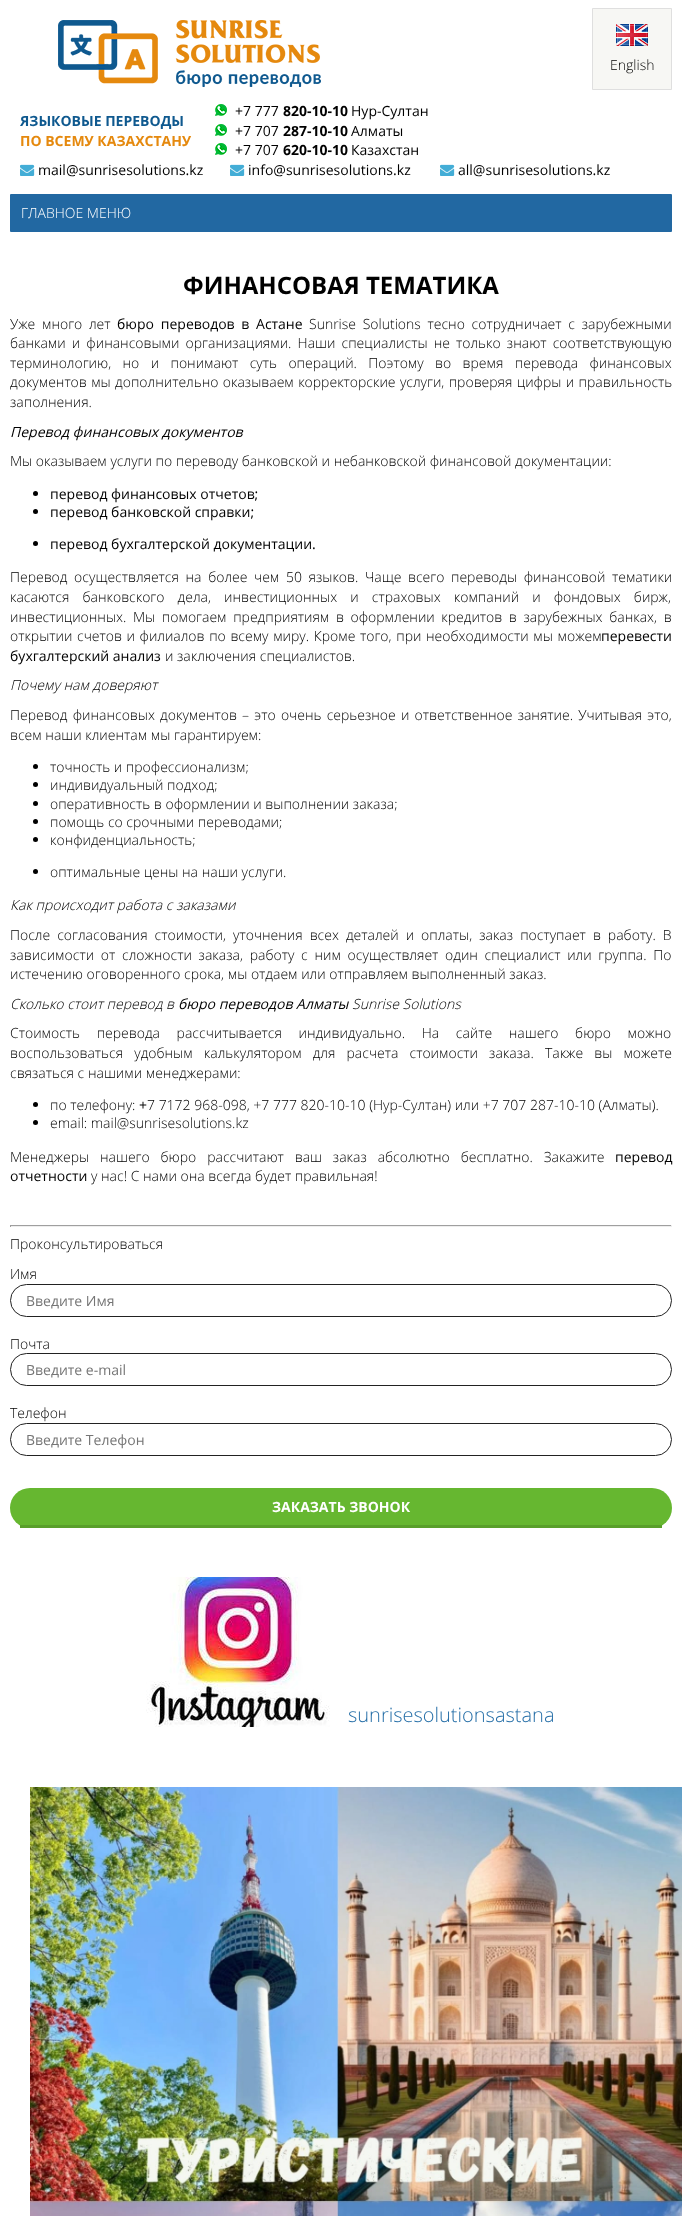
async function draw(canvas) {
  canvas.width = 682
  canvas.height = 2216
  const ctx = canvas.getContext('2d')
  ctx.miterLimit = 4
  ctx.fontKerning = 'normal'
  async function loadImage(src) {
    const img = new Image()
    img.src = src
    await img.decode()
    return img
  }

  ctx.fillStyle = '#fff'
  ctx.fillRect(0, 0, 682, 2216)
  ctx.drawImage(await loadImage('image0.png'), 58, 20, 263, 67)
  ctx.fillStyle = '#f7f7f4'
  ctx.beginPath()
  ctx.rect(592.5, 8.5, 79, 81)
  ctx.fill()
  ctx.strokeStyle = '#dfdfdf'
  ctx.stroke()
  ctx.drawImage(await loadImage('image1.png'), 616, 24, 32, 22)
  ctx.font = '300 14px Open Sans'
  ctx.fillStyle = '#000'
  ctx.fillText('English', 610, 70)
  ctx.font = 'bold 14px Open Sans'
  ctx.fillStyle = '#0f598f'
  ctx.fillText('ЯЗЫКОВЫЕ ПЕРЕВОДЫ', 20, 126)
  ctx.fillStyle = '#e5890e'
  ctx.fillText('ПО ВСЕМУ КАЗАХСТАНУ', 20, 146)
  ctx.drawImage(await loadImage('image2.png'), 215, 104, 12, 12)
  ctx.font = '14px Open Sans'
  ctx.fillStyle = '#000'
  ctx.fillText('+7 777', 235, 116)
  ctx.font = 'bold 14px Open Sans'
  ctx.fillText('820-10-10', 283, 116)
  ctx.font = '14px Open Sans'
  ctx.fillText('Нур-Султан', 351, 116)
  ctx.drawImage(await loadImage('image2.png'), 215, 124, 12, 12)
  ctx.fillText('+7 707', 235, 136)
  ctx.font = 'bold 14px Open Sans'
  ctx.fillText('287-10-10', 283, 136)
  ctx.font = '14px Open Sans'
  ctx.fillText('Алматы', 351, 136)
  ctx.drawImage(await loadImage('image2.png'), 215, 143, 12, 12)
  ctx.fillText('+7 707', 235, 155)
  ctx.font = 'bold 14px Open Sans'
  ctx.fillText('620-10-10', 283, 155)
  ctx.font = '14px Open Sans'
  ctx.fillText('Казахстан', 351, 155)
  ctx.drawImage(await loadImage('image3.png'), 20, 164, 15, 12)
  ctx.fillText('mail@sunrisesolutions.kz', 38, 175)
  ctx.drawImage(await loadImage('image3.png'), 230, 164, 15, 12)
  ctx.fillText('info@sunrisesolutions.kz', 248, 175)
  ctx.drawImage(await loadImage('image3.png'), 440, 164, 15, 12)
  ctx.fillText('all@sunrisesolutions.kz', 458, 175)
  ctx.fillStyle = '#2268a2'
  ctx.beginPath()
  ctx.roundRect(10, 194, 662, 38, 1)
  ctx.fill()
  ctx.font = '300 14px Open Sans'
  ctx.fillStyle = '#fff'
  ctx.fillText('ГЛАВНОЕ МЕНЮ', 21, 218)
  ctx.font = 'bold 24px Open Sans'
  ctx.fillStyle = '#000'
  ctx.fillText('ФИНАНСОВАЯ ТЕМАТИКА', 183, 294)
  ctx.wordSpacing = '3.1px'
  ctx.font = '300 14px Open Sans'
  ctx.fillText('Уже много лет', 10, 329)
  ctx.font = '14px Open Sans'
  ctx.fillText('бюро переводов в Астане', 117, 329)
  ctx.font = '300 14px Open Sans'
  ctx.fillText('Sunrise Solutions тесно сотрудничает с зарубежными', 309, 329)
  ctx.wordSpacing = '2.5px'
  ctx.fillText('банками и финансовыми организациями. Наши специалисты не только знают соответствующую', 10, 348)
  ctx.wordSpacing = '7.75px'
  ctx.fillText('терминологию, но и понимают суть операций. Поэтому во время перевода финансовых', 10, 368)
  ctx.wordSpacing = '0.75px'
  ctx.fillText('документов мы дополнительно оказываем корректорские услуги, проверяя цифры и правильность', 10, 387)
  ctx.wordSpacing = '0px'
  ctx.fillText('заполнения.', 10, 407)
  ctx.font = 'italic 14px Open Sans'
  ctx.fillText('Перевод финансовых документов', 10, 437)
  ctx.font = '300 14px Open Sans'
  ctx.fillText('Мы оказываем услуги по переводу банковской и небанковской финансовой документации:', 10, 466)
  ctx.beginPath()
  ctx.arc(35.5, 493.5, 2.5, 0, 2 * Math.PI)
  ctx.fill()
  ctx.font = '14px Open Sans'
  ctx.fillText('перевод финансовых отчетов;', 50, 499)
  ctx.beginPath()
  ctx.arc(35.5, 511.5, 2.5, 0, 2 * Math.PI)
  ctx.fill()
  ctx.fillText('перевод банковской справки;', 50, 517)
  ctx.beginPath()
  ctx.arc(35.5, 543.5, 2.5, 0, 2 * Math.PI)
  ctx.fill()
  ctx.fillText('перевод бухгалтерской документации.', 50, 549)
  ctx.wordSpacing = '3px'
  ctx.font = '300 14px Open Sans'
  ctx.fillText('Перевод осуществляется на более чем 50 языков. Чаще всего переводы финансовой тематики', 10, 582)
  ctx.wordSpacing = '9.5px'
  ctx.fillText('касаются банковского дела, инвестиционных и страховых компаний и фондовых бирж,', 10, 602)
  ctx.wordSpacing = '3px'
  ctx.fillText('инвестиционных. Мы помогаем предприятиям в оформлении кредитов в зарубежных банках, в', 10, 622)
  ctx.wordSpacing = '1px'
  ctx.fillText('открытии счетов и филиалов по всему миру. Кроме того, при необходимости мы можем', 10, 641)
  ctx.wordSpacing = '0px'
  ctx.font = '14px Open Sans'
  ctx.fillText('перевести', 601, 641)
  ctx.fillText('бухгалтерский анализ', 10, 661)
  ctx.font = '300 14px Open Sans'
  ctx.fillText('и заключения специалистов.', 165, 661)
  ctx.font = 'italic 300 14px Open Sans'
  ctx.fillText('Почему нам доверяют', 10, 690)
  ctx.wordSpacing = '1.6px'
  ctx.font = '300 14px Open Sans'
  ctx.fillText('Перевод финансовых документов – это очень серьезное и ответственное занятие. Учитывая это,', 10, 720)
  ctx.wordSpacing = '0px'
  ctx.fillText('всем наши клиентам мы гарантируем:', 10, 740)
  ctx.beginPath()
  ctx.arc(35.5, 766.5, 2.5, 0, 2 * Math.PI)
  ctx.fill()
  ctx.fillText('точность и профессионализм;', 50, 772)
  ctx.beginPath()
  ctx.arc(35.5, 784.5, 2.5, 0, 2 * Math.PI)
  ctx.fill()
  ctx.fillText('индивидуальный подход;', 50, 790)
  ctx.beginPath()
  ctx.arc(35.5, 803.5, 2.5, 0, 2 * Math.PI)
  ctx.fill()
  ctx.fillText('оперативность в оформлении и выполнении заказа;', 50, 809)
  ctx.beginPath()
  ctx.arc(35.5, 821.5, 2.5, 0, 2 * Math.PI)
  ctx.fill()
  ctx.fillText('помощь со срочными переводами;', 50, 827)
  ctx.beginPath()
  ctx.arc(35.5, 839.5, 2.5, 0, 2 * Math.PI)
  ctx.fill()
  ctx.fillText('конфиденциальность;', 50, 845)
  ctx.beginPath()
  ctx.arc(35.5, 871.5, 2.5, 0, 2 * Math.PI)
  ctx.fill()
  ctx.fillText('оптимальные цены на наши услуги.', 50, 877)
  ctx.font = 'italic 300 14px Open Sans'
  ctx.fillText('Как происходит работа с заказами', 10, 910)
  ctx.wordSpacing = '3.4px'
  ctx.font = '300 14px Open Sans'
  ctx.fillText('После согласования стоимости, уточнения всех деталей и оплаты, заказ поступает в работу. В', 10, 940)
  ctx.wordSpacing = '3.1px'
  ctx.fillText('зависимости от сложности заказа, работу с ним осуществляет один специалист или группа. По', 10, 960)
  ctx.wordSpacing = '0px'
  ctx.fillText('истечению оговоренного срока, мы отдаем или отправляем выполненный заказ.', 10, 979)
  ctx.font = 'italic 300 14px Open Sans'
  ctx.fillText('Сколько стоит перевод в', 10, 1009)
  ctx.font = 'italic 14px Open Sans'
  ctx.fillText('бюро переводов Алматы', 178, 1009)
  ctx.font = 'italic 300 14px Open Sans'
  ctx.fillText('Sunrise Solutions', 352, 1009)
  ctx.wordSpacing = '13px'
  ctx.font = '300 14px Open Sans'
  ctx.fillText('Стоимость перевода рассчитывается индивидуально. На сайте нашего бюро можно', 10, 1038)
  ctx.wordSpacing = '7.5px'
  ctx.fillText('воспользоваться удобным калькулятором для расчета стоимости заказа. Также вы можете', 10, 1058)
  ctx.wordSpacing = '0px'
  ctx.fillText('связаться с нашими менеджерами:', 10, 1078)
  ctx.beginPath()
  ctx.arc(35.5, 1104.5, 2.5, 0, 2 * Math.PI)
  ctx.fill()
  ctx.fillText('по телефону:', 50, 1110)
  ctx.font = '14px Open Sans'
  ctx.fillText('+', 139, 1110)
  ctx.font = '300 14px Open Sans'
  ctx.fillText('7 7172 968-098, +7 777 820-10-10 (Нур-Султан) или +7 707 287-10-10 (Алматы).', 147, 1110)
  ctx.beginPath()
  ctx.arc(35.5, 1122.5, 2.5, 0, 2 * Math.PI)
  ctx.fill()
  ctx.fillText('email: mail@sunrisesolutions.kz', 50, 1128)
  ctx.wordSpacing = '7.25px'
  ctx.fillText('Менеджеры нашего бюро рассчитают ваш заказ абсолютно бесплатно. Закажите', 10, 1162)
  ctx.wordSpacing = '0px'
  ctx.font = '14px Open Sans'
  ctx.fillText('перевод', 615, 1162)
  ctx.fillText('отчетности', 10, 1181)
  ctx.font = '300 14px Open Sans'
  ctx.fillText('у нас! С нами она всегда будет правильная!', 91, 1181)
  ctx.fillStyle = '#9f9f9f'
  ctx.fillRect(10, 1225, 662, 1)
  ctx.fillStyle = '#eee'
  ctx.fillRect(671, 1225, 1, 2)
  ctx.fillRect(10, 1226, 662, 1)
  ctx.fillStyle = '#9f9f9f'
  ctx.fillRect(10, 1225, 1, 2)
  ctx.fillStyle = '#000'
  ctx.fillText('Проконсультироваться', 10, 1249)
  ctx.fillText('Имя', 10, 1279)
  ctx.beginPath()
  ctx.roundRect(10.5, 1284.5, 661, 32, 16)
  ctx.strokeStyle = '#222'
  ctx.stroke()
  ctx.font = '14px Open Sans'
  ctx.fillStyle = '#757575'
  ctx.fillText('Введите Имя', 26, 1306)
  ctx.font = '300 14px Open Sans'
  ctx.fillStyle = '#000'
  ctx.fillText('Почта', 10, 1349)
  ctx.beginPath()
  ctx.roundRect(10.5, 1353.5, 661, 32, 16)
  ctx.stroke()
  ctx.font = '14px Open Sans'
  ctx.fillStyle = '#757575'
  ctx.fillText('Введите e-mail', 26, 1375)
  ctx.font = '300 14px Open Sans'
  ctx.fillStyle = '#000'
  ctx.fillText('Телефон', 10, 1418)
  ctx.beginPath()
  ctx.roundRect(10.5, 1423.5, 661, 32, 16)
  ctx.stroke()
  ctx.font = '14px Open Sans'
  ctx.fillStyle = '#757575'
  ctx.fillText('Введите Телефон', 26, 1445)
  ctx.fillStyle = '#66b730'
  ctx.beginPath()
  ctx.roundRect(10, 1488, 662, 40, 20)
  ctx.fill()
  ctx.fillStyle = '#599f2a'
  ctx.fillRect(20, 1525, 642, 3)
  ctx.font = 'bold 14px Open Sans'
  ctx.fillStyle = '#fff'
  ctx.fillText('ЗАКАЗАТЬ ЗВОНОК', 272, 1512)
  ctx.drawImage(await loadImage('image4.png'), 146, 1577, 184, 150)
  ctx.font = '300 20px Open Sans'
  ctx.fillStyle = '#256ea7'
  ctx.fillText('sunrisesolutionsastana', 348, 1722)
  ctx.drawImage(await loadImage('image5.png'), 30, 1787, 652, 429)
}

draw(document.querySelector('canvas'))
